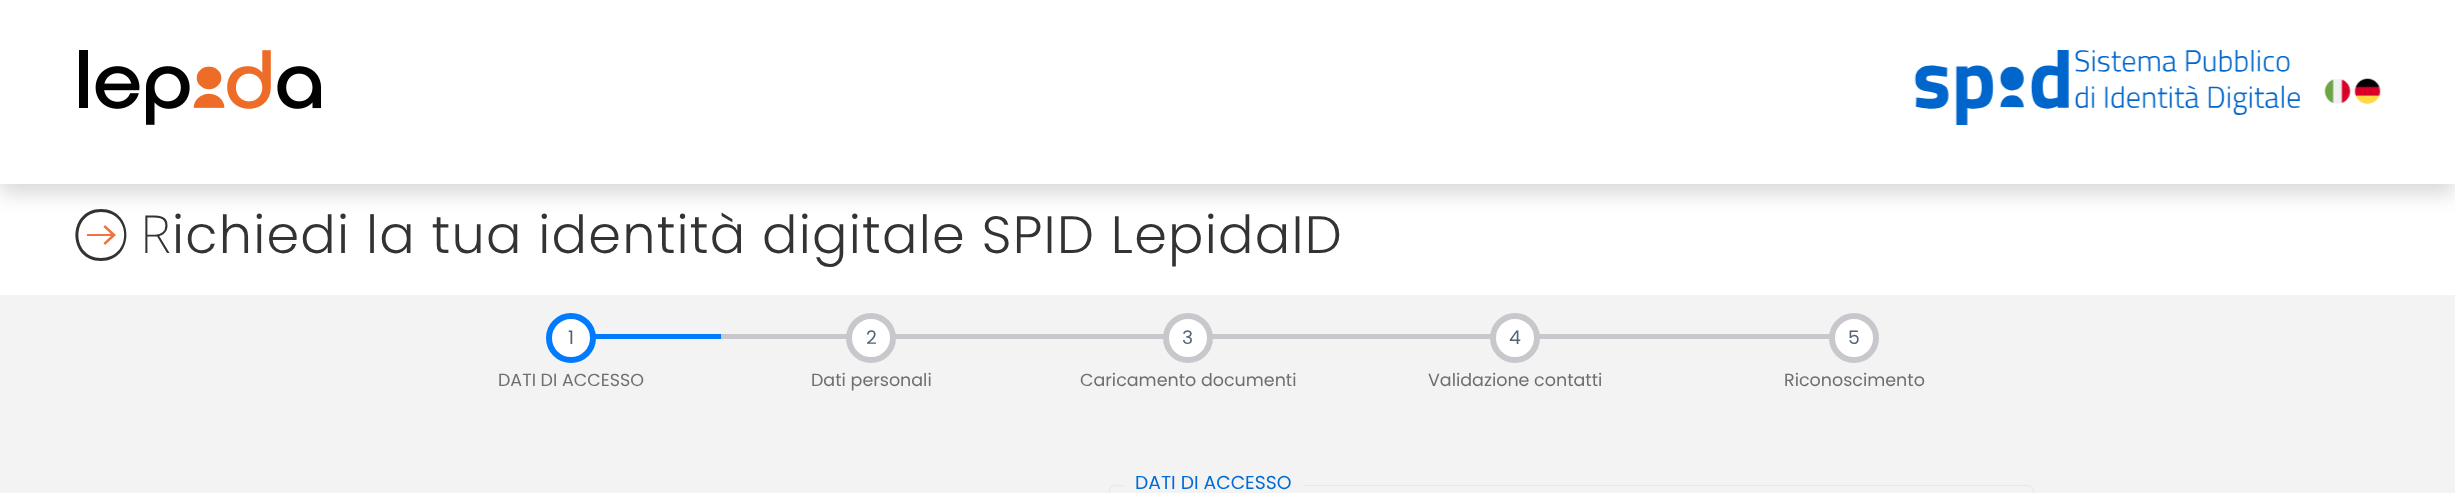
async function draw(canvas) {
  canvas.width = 2455
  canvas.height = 493
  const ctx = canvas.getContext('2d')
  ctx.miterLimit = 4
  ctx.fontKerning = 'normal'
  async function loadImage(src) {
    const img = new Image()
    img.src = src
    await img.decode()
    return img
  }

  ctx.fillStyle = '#f3f3f3'
  ctx.fillRect(0, 0, 2455, 493)
  ctx.fillStyle = '#fff'
  ctx.fillRect(0, 184, 2455, 111)
  ctx.fillStyle = '#f0743c'
  ctx.fillRect(87, 234, 26, 2)
  ctx.beginPath()
  ctx.moveTo(105, 245)
  ctx.lineTo(103.5, 243)
  ctx.lineTo(112, 235)
  ctx.lineTo(103.5, 227)
  ctx.lineTo(105, 225)
  ctx.lineTo(116, 235)
  ctx.closePath()
  ctx.fill()
  ctx.fillStyle = '#333'
  ctx.beginPath()
  ctx.moveTo(101, 261)
  ctx.bezierCurveTo(67, 261, 67, 209, 101, 209)
  ctx.bezierCurveTo(135, 209, 135, 261, 101, 261)
  ctx.closePath()
  ctx.moveTo(101, 212)
  ctx.bezierCurveTo(71, 212, 71, 258, 101, 258)
  ctx.bezierCurveTo(132, 258, 132, 212, 101, 212)
  ctx.closePath()
  ctx.fill()
  ctx.fillStyle = '#00000026'
  ctx.filter = 'blur(10px)'
  ctx.beginPath()
  ctx.rect(0, 10, 2455, 184)
  ctx.fill()
  ctx.filter = 'none'
  ctx.fillStyle = '#fff'
  ctx.fillRect(0, 0, 2455, 184)
  ctx.drawImage(await loadImage('image0.png'), 79, 50, 243, 75)
  ctx.drawImage(await loadImage('image1.png'), 1914, 50, 386, 75)
  ctx.drawImage(await loadImage('image2.png'), 2324, 79, 27, 25)
  ctx.drawImage(await loadImage('image3.png'), 2354, 78, 27, 26)
  ctx.letterSpacing = '1.25px'
  ctx.font = '200 52.5px Noto Sans'
  ctx.fillStyle = '#333'
  ctx.fillText('R', 140, 253)
  ctx.font = '300 52.5px Poppins'
  ctx.fillText('ichiedi la tua identità digitale SPID LepidaID', 172, 253)
  ctx.fillStyle = '#007aff'
  ctx.fillRect(595, 334, 130, 5)
  ctx.fillStyle = '#fff'
  ctx.beginPath()
  ctx.arc(571, 338, 22, 0, 2 * Math.PI)
  ctx.fill()
  ctx.strokeStyle = '#007aff'
  ctx.lineWidth = 6
  ctx.stroke()
  ctx.letterSpacing = '0px'
  ctx.font = '18.75px Poppins'
  ctx.fillStyle = '#546474'
  ctx.fillText('1', 568, 344)
  ctx.font = '17.5px Poppins'
  ctx.fillStyle = '#6f6f6f'
  ctx.fillText('DATI DI ACCESSO', 498, 386)
  ctx.fillStyle = '#c8c7cc'
  ctx.fillRect(721, 334, 1109, 5)
  ctx.fillStyle = '#fff'
  ctx.beginPath()
  ctx.arc(871, 338, 22, 0, 2 * Math.PI)
  ctx.fill()
  ctx.strokeStyle = '#c8c7cc'
  ctx.stroke()
  ctx.font = '18.75px Poppins'
  ctx.fillStyle = '#546474'
  ctx.fillText('2', 866, 344)
  ctx.font = '17.5px Poppins'
  ctx.fillStyle = '#6f6f6f'
  ctx.fillText('Dati personali', 811, 386)
  ctx.fillStyle = '#fff'
  ctx.beginPath()
  ctx.arc(1188, 338, 22, 0, 2 * Math.PI)
  ctx.fill()
  ctx.stroke()
  ctx.font = '18.75px Poppins'
  ctx.fillStyle = '#546474'
  ctx.fillText('3', 1182, 344)
  ctx.font = '17.5px Poppins'
  ctx.fillStyle = '#6f6f6f'
  ctx.fillText('Caricamento documenti', 1080, 386)
  ctx.fillStyle = '#fff'
  ctx.beginPath()
  ctx.arc(1515, 338, 22, 0, 2 * Math.PI)
  ctx.fill()
  ctx.stroke()
  ctx.font = '18.75px Poppins'
  ctx.fillStyle = '#546474'
  ctx.fillText('4', 1509, 344)
  ctx.font = '17.5px Poppins'
  ctx.fillStyle = '#6f6f6f'
  ctx.fillText('Validazione contatti', 1428, 386)
  ctx.fillStyle = '#fff'
  ctx.beginPath()
  ctx.arc(1854, 338, 22, 0, 2 * Math.PI)
  ctx.fill()
  ctx.stroke()
  ctx.font = '18.75px Poppins'
  ctx.fillStyle = '#546474'
  ctx.fillText('5', 1848, 344)
  ctx.font = '17.5px Poppins'
  ctx.fillStyle = '#6f6f6f'
  ctx.fillText('Riconoscimento', 1784, 386)
  ctx.beginPath()
  ctx.roundRect(1109.5, 485.5, 924, 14, 5.5)
  ctx.strokeStyle = '#e6e8e8'
  ctx.lineWidth = 1
  ctx.stroke()
  ctx.fillStyle = '#f3f3f3'
  ctx.fillRect(1123, 485, 181, 1)
  ctx.font = '18.75px Poppins'
  ctx.fillStyle = '#006bd6'
  ctx.fillText('DATI DI ACCESSO', 1135, 489)
}

draw(document.querySelector('canvas'))
